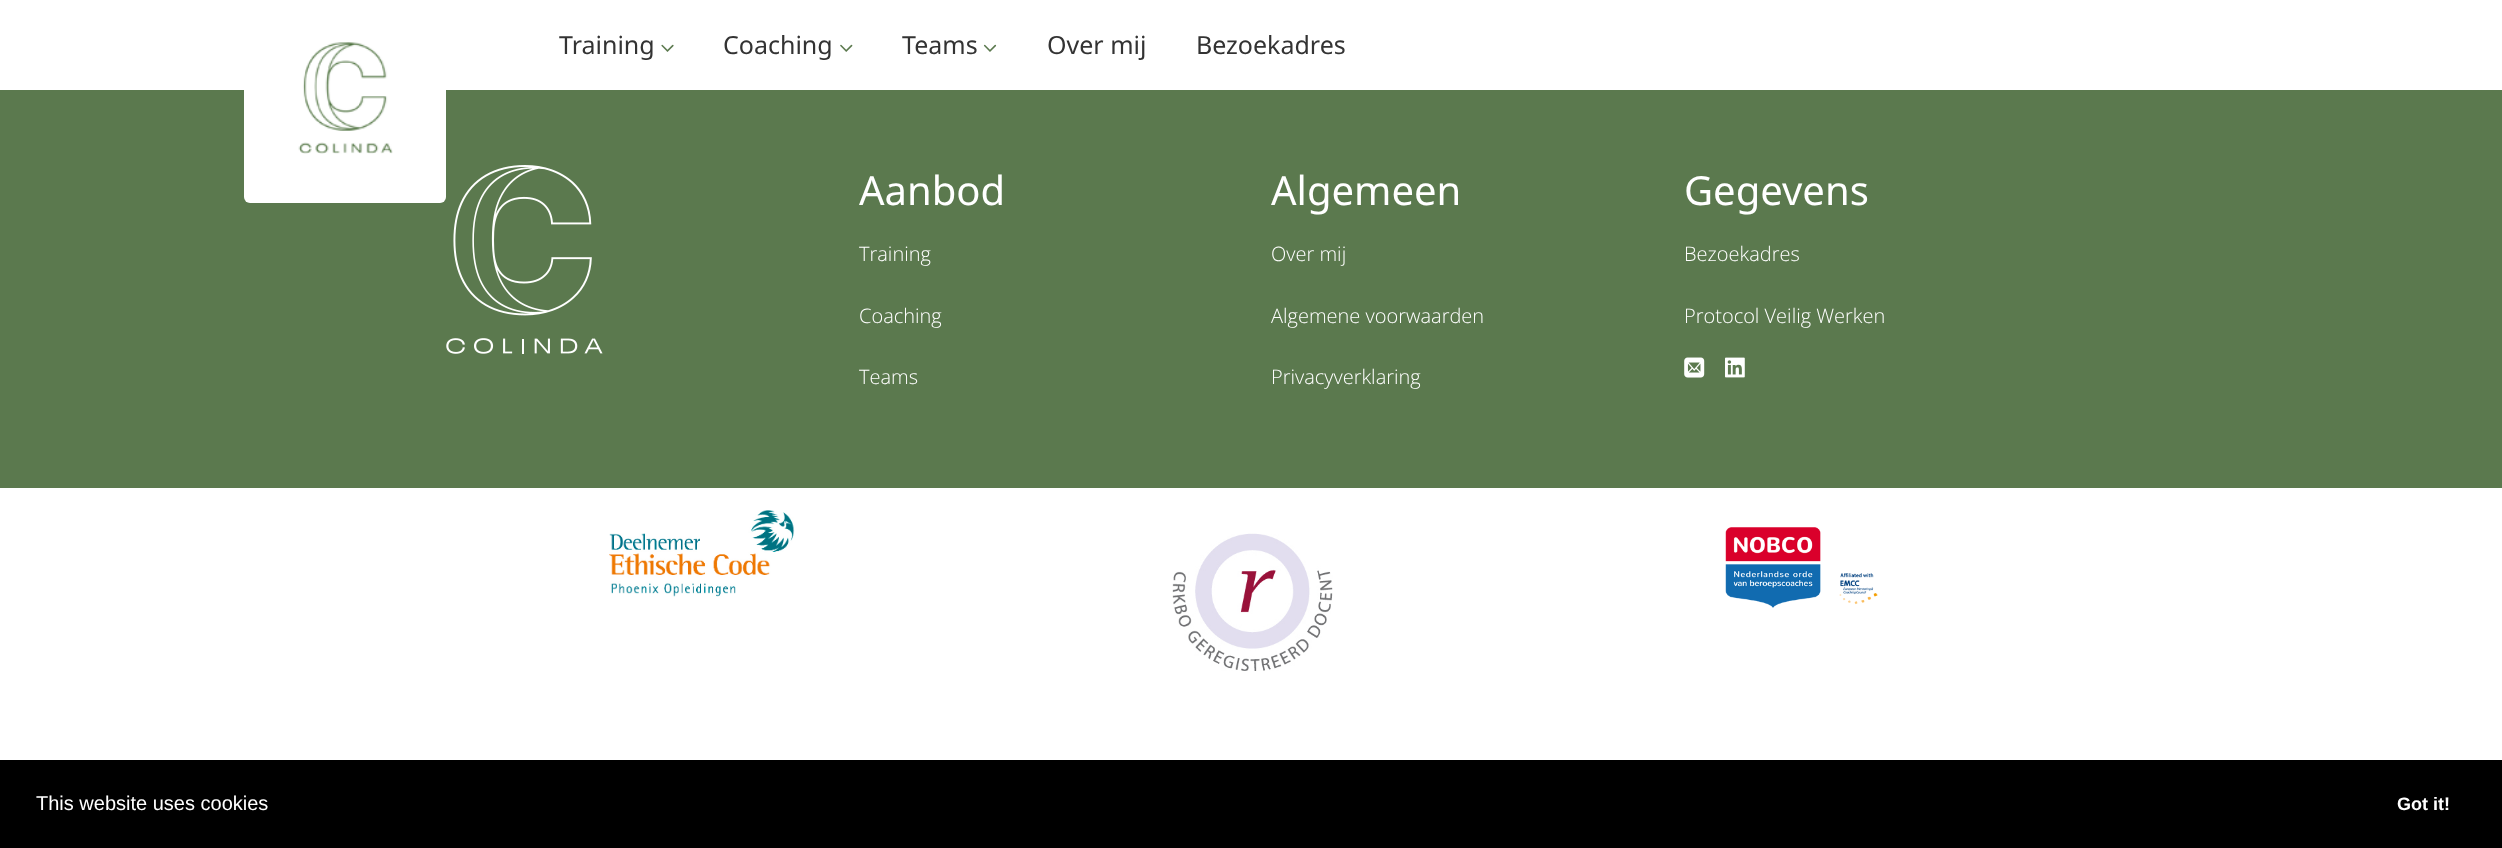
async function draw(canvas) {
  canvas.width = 2502
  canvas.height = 848
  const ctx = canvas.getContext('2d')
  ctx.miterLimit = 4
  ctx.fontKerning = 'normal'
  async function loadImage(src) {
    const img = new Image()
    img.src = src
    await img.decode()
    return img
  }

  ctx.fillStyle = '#fff'
  ctx.fillRect(0, 0, 2502, 848)
  ctx.fillStyle = '#5b794e'
  ctx.fillRect(0, 90, 2502, 398)
  ctx.fillStyle = '#fff'
  ctx.beginPath()
  ctx.roundRect(244, 0, 202, 203, 6)
  ctx.fill()
  ctx.drawImage(await loadImage('image0.png'), 298, 42, 95, 112)
  ctx.font = '25px Noto Sans'
  ctx.fillStyle = '#333'
  ctx.fillText('Training', 559, 54)
  ctx.drawImage(await loadImage('image1.png'), 661, 44, 13, 8)
  ctx.fillText('Coaching', 723, 54)
  ctx.drawImage(await loadImage('image2.png'), 840, 44, 13, 8)
  ctx.fillText('Teams', 902, 54)
  ctx.drawImage(await loadImage('image3.png'), 983, 44, 14, 8)
  ctx.fillText('Over mij', 1047, 54)
  ctx.fillText('Bezoekadres', 1196, 54)
  ctx.drawImage(await loadImage('image4.png'), 446, 165, 157, 189)
  ctx.font = '40px Noto Sans'
  ctx.fillStyle = '#fff'
  ctx.fillText('Aanbod', 859, 205)
  ctx.font = '300 20px Open Sans'
  ctx.fillText('Training', 859, 261)
  ctx.fillText('Coaching', 859, 323)
  ctx.fillText('Teams', 859, 384)
  ctx.font = '40px Noto Sans'
  ctx.fillText('Algemeen', 1271, 205)
  ctx.font = '300 20px Open Sans'
  ctx.fillText('Over mij', 1271, 261)
  ctx.fillText('Algemene voorwaarden', 1271, 323)
  ctx.fillText('Privacyverklaring', 1271, 384)
  ctx.font = '40px Noto Sans'
  ctx.fillText('Gegevens', 1684, 205)
  ctx.font = '300 20px Open Sans'
  ctx.fillText('Bezoekadres', 1684, 261)
  ctx.fillText('Protocol Veilig Werken', 1684, 323)
  ctx.drawImage(await loadImage('image5.png'), 1684, 357, 21, 21)
  ctx.drawImage(await loadImage('image6.png'), 1725, 357, 20, 21)
  ctx.drawImage(await loadImage('image7.png'), 609, 510, 186, 87)
  ctx.drawImage(await loadImage('image8.png'), 1172, 533, 161, 138)
  ctx.drawImage(await loadImage('image9.png'), 1725, 527, 153, 81)
  ctx.fillStyle = '#000'
  ctx.fillRect(0, 760, 2502, 88)
  ctx.font = '20px Liberation Sans'
  ctx.fillStyle = '#fff'
  ctx.fillText('This website uses cookies', 36, 810)
  ctx.font = 'bold 18px Liberation Sans'
  ctx.fillText('Got it!', 2397, 810)
}

draw(document.querySelector('canvas'))
